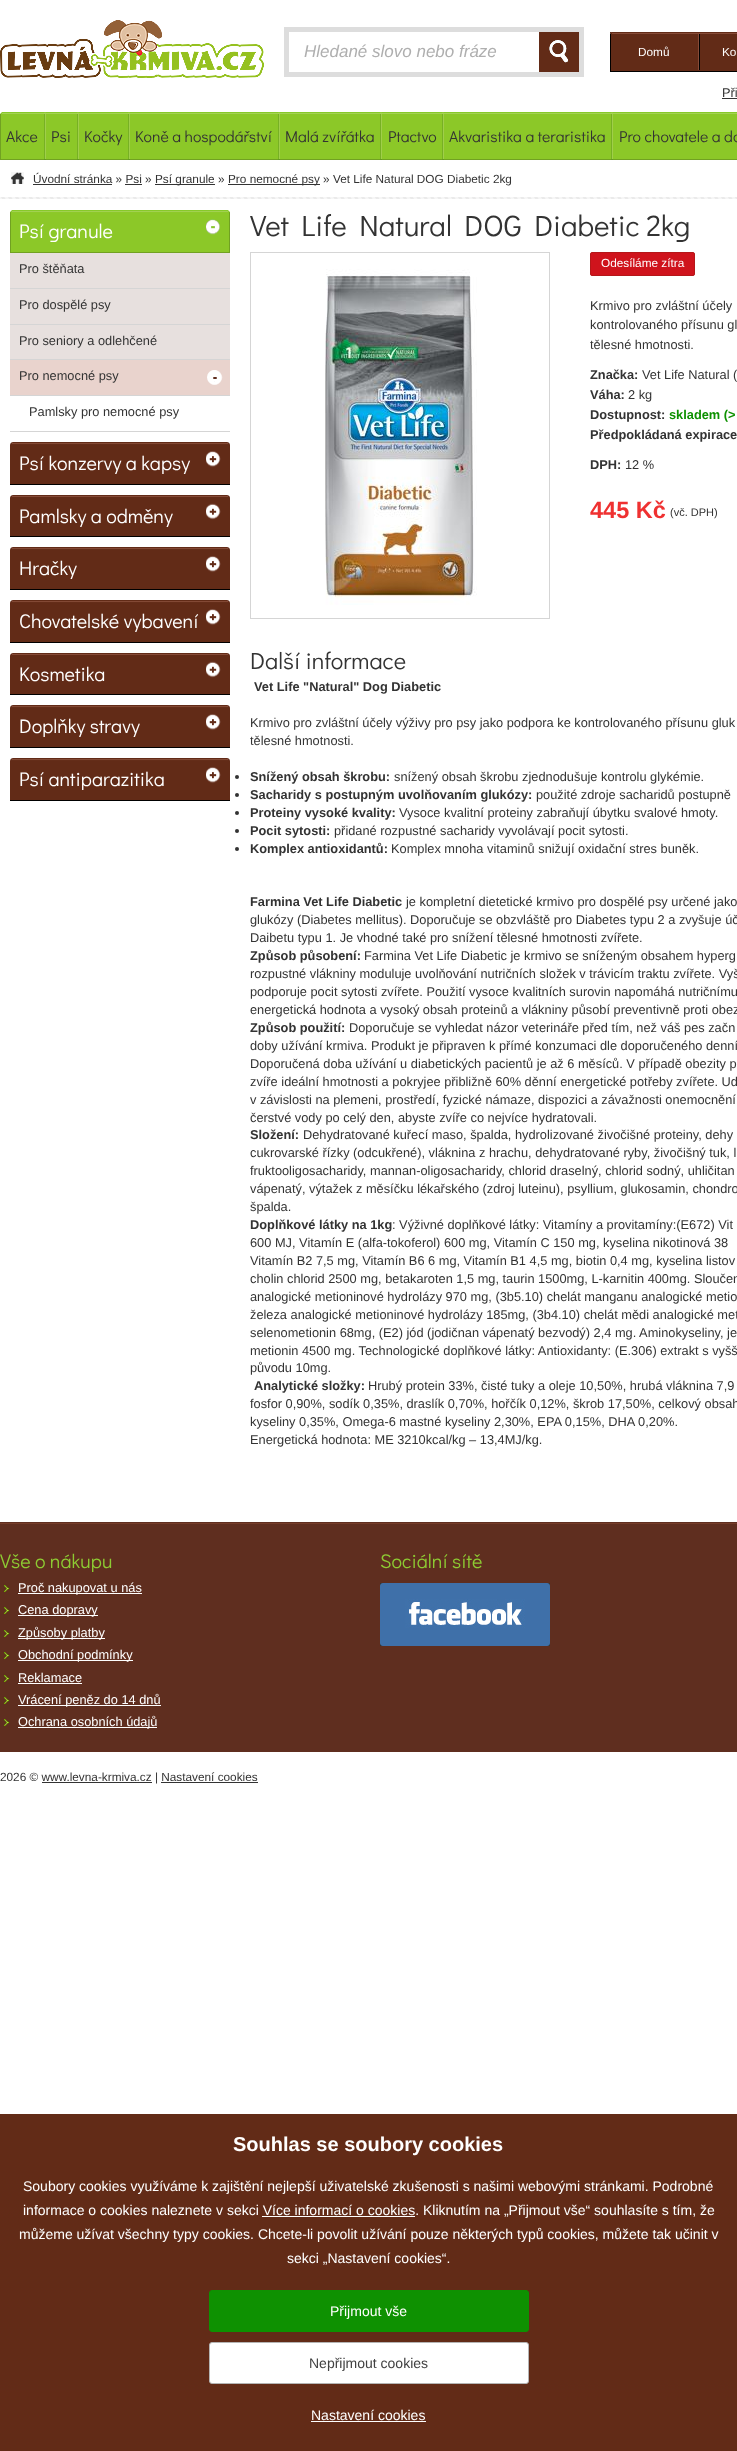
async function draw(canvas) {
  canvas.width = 737
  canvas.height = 2451
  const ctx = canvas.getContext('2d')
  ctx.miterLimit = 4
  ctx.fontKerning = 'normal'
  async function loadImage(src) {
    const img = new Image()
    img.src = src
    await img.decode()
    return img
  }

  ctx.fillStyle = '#fff'
  ctx.fillRect(0, 0, 737, 2451)
  ctx.drawImage(await loadImage('image0.png'), 0, 20, 264, 58)
  ctx.fillStyle = '#ddd'
  ctx.fillRect(284, 27, 300, 50)
  ctx.fillStyle = '#fff'
  ctx.fillRect(289, 32, 250, 40)
  ctx.font = 'italic 17px Liberation Sans'
  ctx.fillStyle = '#afafaf'
  ctx.fillText('Hledané slovo nebo fráze', 304, 57)
  ctx.drawImage(await loadImage('image1.png'), 539, 32, 40, 40)
  ctx.fillStyle = '#5f2e1f'
  ctx.fillRect(610, 32, 1, 1)
  ctx.drawImage(await loadImage('image2.png'), 610, 32, 127, 40)
  ctx.font = '11.8px Liberation Sans'
  ctx.fillStyle = '#fff'
  ctx.fillText('Domů', 638, 56)
  ctx.drawImage(await loadImage('image3.png'), 698, 34, 2, 36)
  ctx.fillText('Ko', 722, 56)
  ctx.font = '12.8px Liberation Sans'
  ctx.fillStyle = '#333'
  ctx.fillText('Při', 722, 97)
  ctx.fillRect(722, 98, 15, 1)
  ctx.drawImage(await loadImage('image4.png'), 0, 112, 737, 48)
  ctx.drawImage(await loadImage('image5.png'), 44, 112, 1, 48)
  ctx.font = '15.75px Didact Gothic'
  ctx.fillText('Akce', 6, 142)
  ctx.drawImage(await loadImage('image5.png'), 77, 112, 1, 48)
  ctx.drawImage(await loadImage('image6.png'), 45, 112, 1, 48)
  ctx.fillText('Psi', 51, 142)
  ctx.drawImage(await loadImage('image5.png'), 128, 112, 1, 48)
  ctx.drawImage(await loadImage('image6.png'), 78, 112, 1, 48)
  ctx.fillText('Kočky', 84, 142)
  ctx.drawImage(await loadImage('image5.png'), 278, 112, 1, 48)
  ctx.drawImage(await loadImage('image6.png'), 129, 112, 1, 48)
  ctx.fillText('Koně a hospodářství', 135, 142)
  ctx.drawImage(await loadImage('image5.png'), 380, 112, 1, 48)
  ctx.drawImage(await loadImage('image6.png'), 279, 112, 1, 48)
  ctx.fillText('Malá zvířátka', 285, 142)
  ctx.drawImage(await loadImage('image5.png'), 442, 112, 1, 48)
  ctx.drawImage(await loadImage('image6.png'), 381, 112, 1, 48)
  ctx.fillText('Ptactvo', 388, 142)
  ctx.drawImage(await loadImage('image5.png'), 611, 112, 1, 48)
  ctx.drawImage(await loadImage('image6.png'), 443, 112, 1, 48)
  ctx.fillText('Akvaristika a teraristika', 449, 142)
  ctx.drawImage(await loadImage('image6.png'), 612, 112, 1, 48)
  ctx.fillText('Pro chovatele a do', 619, 142)
  ctx.drawImage(await loadImage('image7.png'), 0, 197, 737, 2)
  ctx.drawImage(await loadImage('image8.png'), 11, 172, 13, 12)
  ctx.font = '11.8px Liberation Sans'
  ctx.fillText('Úvodní stránka » Psi »', 33, 183)
  ctx.fillRect(33, 184, 79, 1)
  ctx.fillRect(155, 184, 60, 1)
  ctx.fillText('Psí granule »', 155, 183)
  ctx.fillRect(228, 184, 92, 1)
  ctx.fillText('Pro nemocné psy » Vet Life Natural DOG Diabetic 2kg', 228, 183)
  ctx.fillRect(125, 184, 17, 1)
  ctx.drawImage(await loadImage('image9.png'), 10, 210, 220, 42)
  ctx.fillStyle = '#71a122'
  ctx.fillRect(10, 252, 220, 1)
  ctx.font = '19.75px Didact Gothic'
  ctx.fillStyle = '#fff'
  ctx.fillText('Psí granule', 19, 238)
  ctx.fillStyle = '#e7e0de'
  ctx.fillRect(10, 253, 220, 35)
  ctx.fillStyle = '#d5d5d5'
  ctx.fillRect(10, 288, 220, 1)
  ctx.font = '12.8px Liberation Sans'
  ctx.fillStyle = '#333'
  ctx.fillText('Pro štěňata', 19, 273)
  ctx.fillStyle = '#e7e0de'
  ctx.fillRect(10, 289, 220, 35)
  ctx.fillStyle = '#d5d5d5'
  ctx.fillRect(10, 324, 220, 1)
  ctx.fillStyle = '#333'
  ctx.fillText('Pro dospělé psy', 19, 309)
  ctx.fillStyle = '#e7e0de'
  ctx.fillRect(10, 325, 220, 34)
  ctx.fillStyle = '#d5d5d5'
  ctx.fillRect(10, 359, 220, 1)
  ctx.fillStyle = '#333'
  ctx.fillText('Pro seniory a odlehčené', 19, 345)
  ctx.fillStyle = '#e9d3cd'
  ctx.fillRect(10, 360, 220, 35)
  ctx.drawImage(await loadImage('image10.png'), 207, 370, 16, 15)
  ctx.fillStyle = '#d5d5d5'
  ctx.fillRect(10, 395, 220, 1)
  ctx.fillStyle = '#333'
  ctx.fillText('Pro nemocné psy', 19, 380)
  ctx.fillStyle = '#d5d5d5'
  ctx.fillRect(10, 431, 220, 1)
  ctx.fillStyle = '#333'
  ctx.fillText('Pamlsky pro nemocné psy', 29, 416)
  ctx.drawImage(await loadImage('image11.png'), 10, 442, 220, 42)
  ctx.fillStyle = '#000'
  ctx.fillRect(10, 484, 220, 1)
  ctx.font = '19.75px Didact Gothic'
  ctx.fillStyle = '#fff'
  ctx.fillText('Psí konzervy a kapsy', 19, 470)
  ctx.drawImage(await loadImage('image12.png'), 10, 495, 220, 41)
  ctx.fillStyle = '#000'
  ctx.fillRect(10, 536, 220, 1)
  ctx.fillStyle = '#fff'
  ctx.fillText('Pamlsky a odměny', 19, 523)
  ctx.drawImage(await loadImage('image11.png'), 10, 547, 220, 42)
  ctx.fillStyle = '#000'
  ctx.fillRect(10, 589, 220, 1)
  ctx.fillStyle = '#fff'
  ctx.fillText('Hračky', 19, 575)
  ctx.drawImage(await loadImage('image11.png'), 10, 600, 220, 42)
  ctx.fillStyle = '#000'
  ctx.fillRect(10, 642, 220, 1)
  ctx.fillStyle = '#fff'
  ctx.fillText('Chovatelské vybavení', 19, 628)
  ctx.drawImage(await loadImage('image12.png'), 10, 653, 220, 41)
  ctx.fillStyle = '#000'
  ctx.fillRect(10, 694, 220, 1)
  ctx.fillStyle = '#fff'
  ctx.fillText('Kosmetika', 19, 681)
  ctx.drawImage(await loadImage('image11.png'), 10, 705, 220, 42)
  ctx.fillStyle = '#000'
  ctx.fillRect(10, 747, 220, 1)
  ctx.fillStyle = '#fff'
  ctx.fillText('Doplňky stravy', 19, 733)
  ctx.drawImage(await loadImage('image11.png'), 10, 758, 220, 42)
  ctx.fillStyle = '#000'
  ctx.fillRect(10, 800, 220, 1)
  ctx.fillStyle = '#fff'
  ctx.fillText('Psí antiparazitika', 19, 786)
  ctx.font = '29.5px Didact Gothic'
  ctx.fillStyle = '#333'
  ctx.fillText('Vet Life Natural DOG Diabetic 2kg', 250, 236)
  ctx.strokeStyle = '#d5d5d5'
  ctx.strokeRect(250.5, 252.5, 299, 366)
  ctx.drawImage(await loadImage('image13.png'), 325, 269, 152, 336)
  ctx.fillStyle = '#cf131c'
  ctx.beginPath()
  ctx.roundRect(590.5, 252.5, 104, 23, 1.5)
  ctx.fill()
  ctx.strokeStyle = '#b51719'
  ctx.stroke()
  ctx.font = '11.8px Liberation Sans'
  ctx.fillStyle = '#fff'
  ctx.fillText('Odesíláme zítra', 601, 267)
  ctx.font = '12.8px Liberation Sans'
  ctx.fillStyle = '#333'
  ctx.fillText('Krmivo pro zvláštní účely', 590, 310)
  ctx.fillText('kontrolovaného přísunu gl', 590, 329)
  ctx.fillText('tělesné hmotnosti.', 590, 349)
  ctx.font = 'bold 12.8px Liberation Sans'
  ctx.fillText('Značka:', 590, 379)
  ctx.font = '12.8px Liberation Sans'
  ctx.fillText('Vet Life Natural (', 642, 379)
  ctx.font = 'bold 12.8px Liberation Sans'
  ctx.fillText('Váha:', 590, 399)
  ctx.font = '12.8px Liberation Sans'
  ctx.fillText('2 kg', 628, 399)
  ctx.font = 'bold 12.8px Liberation Sans'
  ctx.fillText('Dostupnost:', 590, 419)
  ctx.fillStyle = '#0e9101'
  ctx.fillText('skladem (>', 669, 419)
  ctx.fillStyle = '#333'
  ctx.fillText('Předpokládaná expirace', 590, 439)
  ctx.fillText('DPH:', 590, 469)
  ctx.font = '12.8px Liberation Sans'
  ctx.fillText('12 %', 625, 469)
  ctx.font = 'bold 23.5px Liberation Sans'
  ctx.fillStyle = '#ef3131'
  ctx.fillText('445 Kč', 590, 518)
  ctx.font = '11px Liberation Sans'
  ctx.fillStyle = '#333'
  ctx.fillText('(vč. DPH)', 670, 516)
  ctx.font = '23.5px Didact Gothic'
  ctx.fillText('Další informace', 250, 669)
  ctx.font = 'bold 12.8px Liberation Sans'
  ctx.fillText('Vet Life "Natural" Dog Diabetic', 254, 691)
  ctx.font = '12.8px Liberation Sans'
  ctx.fillText('Krmivo pro zvláštní účely výživy pro psy jako podpora ke kontrolovaného přísunu gluk', 250, 727)
  ctx.fillText('tělesné hmotnosti.', 250, 745)
  ctx.beginPath()
  ctx.arc(237, 777, 2, 0, 2 * Math.PI)
  ctx.fill()
  ctx.font = 'bold 12.8px Liberation Sans'
  ctx.fillText('Snížený obsah škrobu:', 250, 781)
  ctx.font = '12.8px Liberation Sans'
  ctx.fillText('snížený obsah škrobu zjednodušuje kontrolu glykémie.', 394, 781)
  ctx.beginPath()
  ctx.arc(237, 795, 2, 0, 2 * Math.PI)
  ctx.fill()
  ctx.font = 'bold 12.8px Liberation Sans'
  ctx.fillText('Sacharidy s postupným uvolňovaním glukózy:', 250, 799)
  ctx.font = '12.8px Liberation Sans'
  ctx.fillText('použité zdroje sacharidů postupně', 536, 799)
  ctx.beginPath()
  ctx.arc(237, 813, 2, 0, 2 * Math.PI)
  ctx.fill()
  ctx.font = 'bold 12.8px Liberation Sans'
  ctx.fillText('Proteiny vysoké kvality:', 250, 817)
  ctx.font = '12.8px Liberation Sans'
  ctx.fillText('Vysoce kvalitní proteiny zabraňují úbytku svalové hmoty.', 399, 817)
  ctx.beginPath()
  ctx.arc(237, 831, 2, 0, 2 * Math.PI)
  ctx.fill()
  ctx.font = 'bold 12.8px Liberation Sans'
  ctx.fillText('Pocit sytosti:', 250, 835)
  ctx.font = '12.8px Liberation Sans'
  ctx.fillText('přidané rozpustné sacharidy vyvolávají pocit sytosti.', 334, 835)
  ctx.beginPath()
  ctx.arc(237, 849, 2, 0, 2 * Math.PI)
  ctx.fill()
  ctx.font = 'bold 12.8px Liberation Sans'
  ctx.fillText('Komplex antioxidantů:', 250, 853)
  ctx.font = '12.8px Liberation Sans'
  ctx.fillText('Komplex mnoha vitaminů snižují oxidační stres buněk.', 391, 853)
  ctx.font = 'bold 12.8px Liberation Sans'
  ctx.fillText('Farmina Vet Life Diabetic', 250, 906)
  ctx.font = '12.8px Liberation Sans'
  ctx.fillText('je kompletní dietetické krmivo pro dospělé psy určené jako', 406, 906)
  ctx.fillText('glukózy (Diabetes mellitus). Doporučuje se obzvláště pro Diabetes typu 2 a zvyšuje úč', 250, 924)
  ctx.fillText('Daibetu typu 1. Je vhodné také pro snížení tělesné hmotnosti zvířete.', 250, 942)
  ctx.font = 'bold 12.8px Liberation Sans'
  ctx.fillText('Způsob působení:', 250, 960)
  ctx.font = '12.8px Liberation Sans'
  ctx.fillText('Farmina Vet Life Diabetic je krmivo se sníženým obsahem hyperg', 364, 960)
  ctx.fillText('rozpustné vlákniny moduluje uvolňování nutričních složek v trávicím traktu zvířete. Vyš', 250, 978)
  ctx.fillText('podporuje pocit sytosti zvířete. Použití vysoce kvalitních surovin napomáhá nutričnímu', 250, 996)
  ctx.fillText('energetická hodnota a vysoký obsah proteinů a vlákniny působí preventivně proti obez', 250, 1014)
  ctx.font = 'bold 12.8px Liberation Sans'
  ctx.fillText('Způsob použití:', 250, 1032)
  ctx.font = '12.8px Liberation Sans'
  ctx.fillText('Doporučuje se vyhledat názor veterináře před tím, než váš pes začn', 349, 1032)
  ctx.fillText('doby užívání krmiva. Produkt je připraven k přímé konzumaci dle doporučeného denní', 250, 1050)
  ctx.fillText('Doporučená doba užívání u diabetických pacientů je až 6 měsíců. V případě obezity p', 250, 1068)
  ctx.fillText('zvíře ideální hmotnosti a pokryjee přibližně 60% děnní energetické potřeby zvířete. Ud', 250, 1086)
  ctx.fillText('v závislosti na plemeni, prostředí, fyzické námaze, dispozici a závažnosti onemocnění', 250, 1104)
  ctx.fillText('čerstvé vody po celý den, abyste zvíře co nejvíce hydratovali.', 250, 1122)
  ctx.font = 'bold 12.8px Liberation Sans'
  ctx.fillText('Složení:', 250, 1139)
  ctx.font = '12.8px Liberation Sans'
  ctx.fillText('Dehydratované kuřecí maso, špalda, hydrolizované živočišné proteiny, dehy', 303, 1139)
  ctx.fillText('cukrovarské řízky (odcukřené), vláknina z hrachu, dehydratované ryby, živočišný tuk, l', 250, 1157)
  ctx.fillText('fruktooligosacharidy, mannan-oligosacharidy, chlorid draselný, chlorid sodný, uhličitan', 250, 1175)
  ctx.fillText('vápenatý, výtažek z měsíčku lékařského (zdroj luteinu), psyllium, glukosamin, chondro', 250, 1193)
  ctx.fillText('špalda.', 250, 1211)
  ctx.font = 'bold 12.8px Liberation Sans'
  ctx.fillText('Doplňkové látky na 1kg', 250, 1229)
  ctx.font = '12.8px Liberation Sans'
  ctx.fillText(': Výživné doplňkové látky: Vitamíny a provitamíny:(E672) Vit', 392, 1229)
  ctx.fillText('600 MJ, Vitamín E (alfa-tokoferol) 600 mg, Vitamín C 150 mg, kyselina nikotinová 38', 250, 1247)
  ctx.fillText('Vitamín B2 7,5 mg, Vitamín B6 6 mg, Vitamín B1 4,5 mg, biotin 0,4 mg, kyselina listov', 250, 1265)
  ctx.fillText('cholin chlorid 2500 mg, betakaroten 1,5 mg, taurin 1500mg, L-karnitin 400mg. Sloučen', 250, 1283)
  ctx.fillText('analogické metioninové hydrolázy 970 mg, (3b5.10) chelát manganu analogické metio', 250, 1301)
  ctx.fillText('železa analogické metioninové hydrolázy 185mg, (3b4.10) chelát mědi analogické met', 250, 1319)
  ctx.fillText('selenometionin 68mg, (E2) jód (jodičnan vápenatý bezvodý) 2,4 mg. Aminokyseliny, je', 250, 1337)
  ctx.fillText('metionin 4500 mg. Technologické doplňkové látky: Antioxidanty: (E.306) extrakt s vyšš', 250, 1355)
  ctx.fillText('původu 10mg.', 250, 1372)
  ctx.font = 'bold 12.8px Liberation Sans'
  ctx.fillText('Analytické složky:', 254, 1390)
  ctx.font = '12.8px Liberation Sans'
  ctx.fillText('Hrubý protein 33%, čisté tuky a oleje 10,50%, hrubá vláknina 7,9', 368, 1390)
  ctx.fillText('fosfor 0,90%, sodík 0,35%, draslík 0,70%, hořčík 0,12%, škrob 17,50%, celkový obsah', 250, 1408)
  ctx.fillText('kyseliny 0,35%, Omega-6 mastné kyseliny 2,30%, EPA 0,15%, DHA 0,20%.', 250, 1426)
  ctx.fillText('Energetická hodnota: ME 3210kcal/kg – 13,4MJ/kg.', 250, 1444)
  ctx.fillStyle = '#5f2e1f'
  ctx.fillRect(0, 1522, 737, 230)
  ctx.fillStyle = '#753c29'
  ctx.fillRect(0, 1523, 737, 1)
  ctx.font = '19.75px Didact Gothic'
  ctx.fillStyle = '#8dca33'
  ctx.fillText('Vše o nákupu', 0, 1568)
  ctx.drawImage(await loadImage('image14.png'), 4, 1585, 5, 7)
  ctx.fillStyle = '#fff'
  ctx.fillRect(18, 1593, 124, 1)
  ctx.font = '12.8px Liberation Sans'
  ctx.fillText('Proč nakupovat u nás', 18, 1592)
  ctx.drawImage(await loadImage('image14.png'), 4, 1607, 5, 7)
  ctx.fillRect(18, 1615, 80, 1)
  ctx.fillText('Cena dopravy', 18, 1614)
  ctx.drawImage(await loadImage('image14.png'), 4, 1630, 5, 7)
  ctx.fillRect(18, 1638, 87, 1)
  ctx.fillText('Způsoby platby', 18, 1637)
  ctx.drawImage(await loadImage('image14.png'), 4, 1652, 5, 7)
  ctx.fillRect(18, 1660, 115, 1)
  ctx.fillText('Obchodní podmínky', 18, 1659)
  ctx.drawImage(await loadImage('image14.png'), 4, 1675, 5, 7)
  ctx.fillText('Reklamace', 18, 1682)
  ctx.fillRect(18, 1683, 64, 1)
  ctx.drawImage(await loadImage('image14.png'), 4, 1697, 5, 7)
  ctx.fillRect(18, 1705, 143, 1)
  ctx.fillText('Vrácení peněz do 14 dnů', 18, 1704)
  ctx.drawImage(await loadImage('image14.png'), 4, 1719, 5, 7)
  ctx.fillRect(18, 1727, 139, 1)
  ctx.fillText('Ochrana osobních údajů', 18, 1726)
  ctx.font = '19.75px Didact Gothic'
  ctx.fillStyle = '#8dca33'
  ctx.fillText('Sociální sítě', 380, 1568)
  ctx.drawImage(await loadImage('image15.png'), 380, 1583, 170, 63)
  ctx.font = '11.8px Liberation Sans'
  ctx.fillStyle = '#333'
  ctx.fillText('2026 © www.levna-krmiva.cz | Nastavení cookies', 0, 1781)
  ctx.fillRect(42, 1782, 110, 1)
  ctx.fillRect(161, 1782, 97, 1)
  ctx.fillStyle = '#622b17'
  ctx.fillRect(0, 2114, 737, 337)
  ctx.font = 'bold 20px Liberation Sans'
  ctx.fillStyle = '#fff'
  ctx.fillText('Souhlas se soubory cookies', 233, 2151)
  ctx.font = '14px Liberation Sans'
  ctx.fillText('Soubory cookies využíváme k zajištění nejlepší uživatelské zkušenosti s našimi webovými stránkami. Podrobné', 23, 2191)
  ctx.fillText('informace o cookies naleznete v sekci Více informací o cookies. Kliknutím na „Přijmout vše“ souhlasíte s tím, že', 23, 2215)
  ctx.fillRect(262, 2216, 153, 1)
  ctx.fillText('můžeme užívat všechny typy cookies. Chcete-li povolit užívání pouze některých typů cookies, můžete tak učinit v', 19, 2239)
  ctx.fillText('sekci „Nastavení cookies“.', 287, 2263)
  ctx.fillStyle = '#0e9101'
  ctx.beginPath()
  ctx.roundRect(209.5, 2290.5, 319, 41, 2.5)
  ctx.fill()
  ctx.strokeStyle = '#0e9101'
  ctx.stroke()
  ctx.fillStyle = '#fff'
  ctx.fillText('Přijmout vše', 330, 2316)
  ctx.beginPath()
  ctx.roundRect(209.5, 2342.5, 319, 41, 2.5)
  ctx.fill()
  ctx.strokeStyle = '#b4b4b4'
  ctx.stroke()
  ctx.fillStyle = '#414141'
  ctx.fillText('Nepřijmout cookies', 309, 2368)
  ctx.fillStyle = '#fff'
  ctx.fillText('Nastavení cookies', 311, 2420)
  ctx.fillRect(311, 2421, 115, 1)
}

draw(document.querySelector('canvas'))
